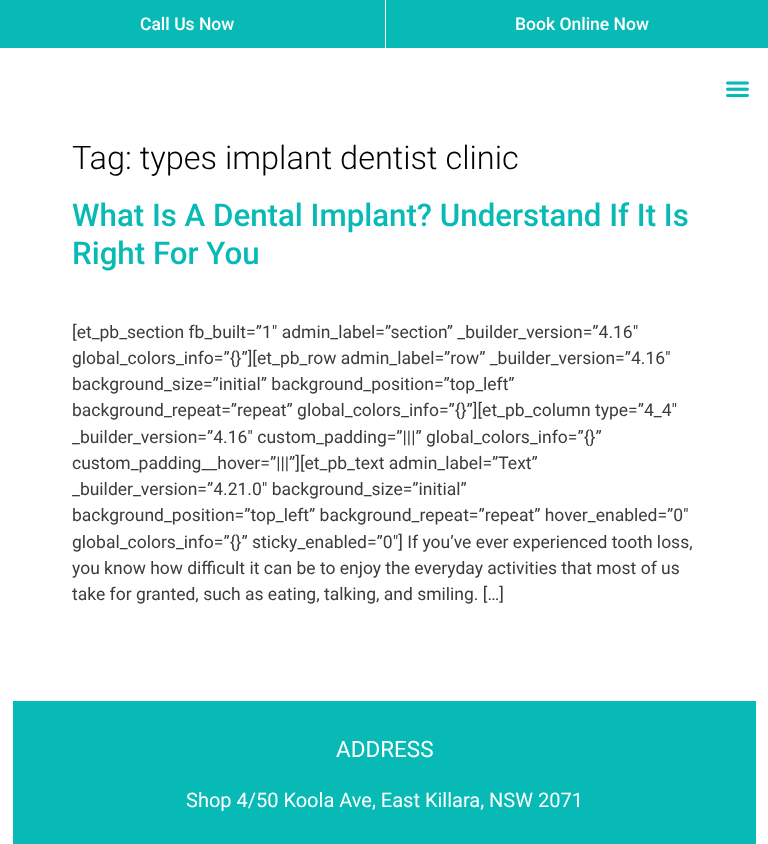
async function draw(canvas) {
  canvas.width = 768
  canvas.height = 844
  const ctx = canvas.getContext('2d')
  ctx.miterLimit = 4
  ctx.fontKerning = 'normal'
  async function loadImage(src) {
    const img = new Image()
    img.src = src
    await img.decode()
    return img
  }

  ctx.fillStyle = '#fff'
  ctx.fillRect(0, 0, 768, 844)
  ctx.fillStyle = '#08bab5'
  ctx.fillRect(0, 0, 768, 48)
  ctx.font = '500 17.5px Roboto'
  ctx.fillStyle = '#fff'
  ctx.fillText('Call Us Now', 140, 30)
  ctx.fillRect(385, 0, 1, 48)
  ctx.fillText('Book Online Now', 515, 30)
  ctx.drawImage(await loadImage('image0.png'), 726, 81, 23, 17)
  ctx.font = '300 32.5px Roboto'
  ctx.fillStyle = '#000'
  ctx.fillText('Tag: types implant dentist clinic', 72, 169)
  ctx.font = '500 31.25px Roboto'
  ctx.fillStyle = '#08bab5'
  ctx.fillText('What Is A Dental Implant? Understand If It Is', 72, 226)
  ctx.fillText('Right For You', 72, 264)
  ctx.font = '17.5px Roboto'
  ctx.fillStyle = '#3b3b3b'
  ctx.fillText('[et_pb_section fb_built=”1″ admin_label=”section” _builder_version=”4.16″', 72, 338)
  ctx.fillText('global_colors_info=”{}”][et_pb_row admin_label=”row” _builder_version=”4.16″', 72, 364)
  ctx.fillText('background_size=”initial” background_position=”top_left”', 72, 390)
  ctx.fillText('background_repeat=”repeat” global_colors_info=”{}”][et_pb_column type=”4_4″', 72, 416)
  ctx.fillText('_builder_version=”4.16″ custom_padding=”|||” global_colors_info=”{}”', 72, 443)
  ctx.fillText('custom_padding__hover=”|||”][et_pb_text admin_label=”Text”', 72, 469)
  ctx.fillText('_builder_version=”4.21.0″ background_size=”initial”', 72, 495)
  ctx.fillText('background_position=”top_left” background_repeat=”repeat” hover_enabled=”0″', 72, 521)
  ctx.fillText('global_colors_info=”{}” sticky_enabled=”0″] If you’ve ever experienced tooth loss,', 72, 548)
  ctx.fillText('you know how difficult it can be to enjoy the everyday activities that most of us', 72, 574)
  ctx.fillText('take for granted, such as eating, talking, and smiling. […]', 72, 600)
  ctx.fillStyle = '#08bab5'
  ctx.fillRect(13, 701, 743, 143)
  ctx.font = '22.5px Roboto'
  ctx.fillStyle = '#fff'
  ctx.fillText('ADDRESS', 336, 757)
  ctx.font = '20px Roboto'
  ctx.fillText('Shop 4/50 Koola Ave, East Killara, NSW 2071', 186, 807)
}

draw(document.querySelector('canvas'))
